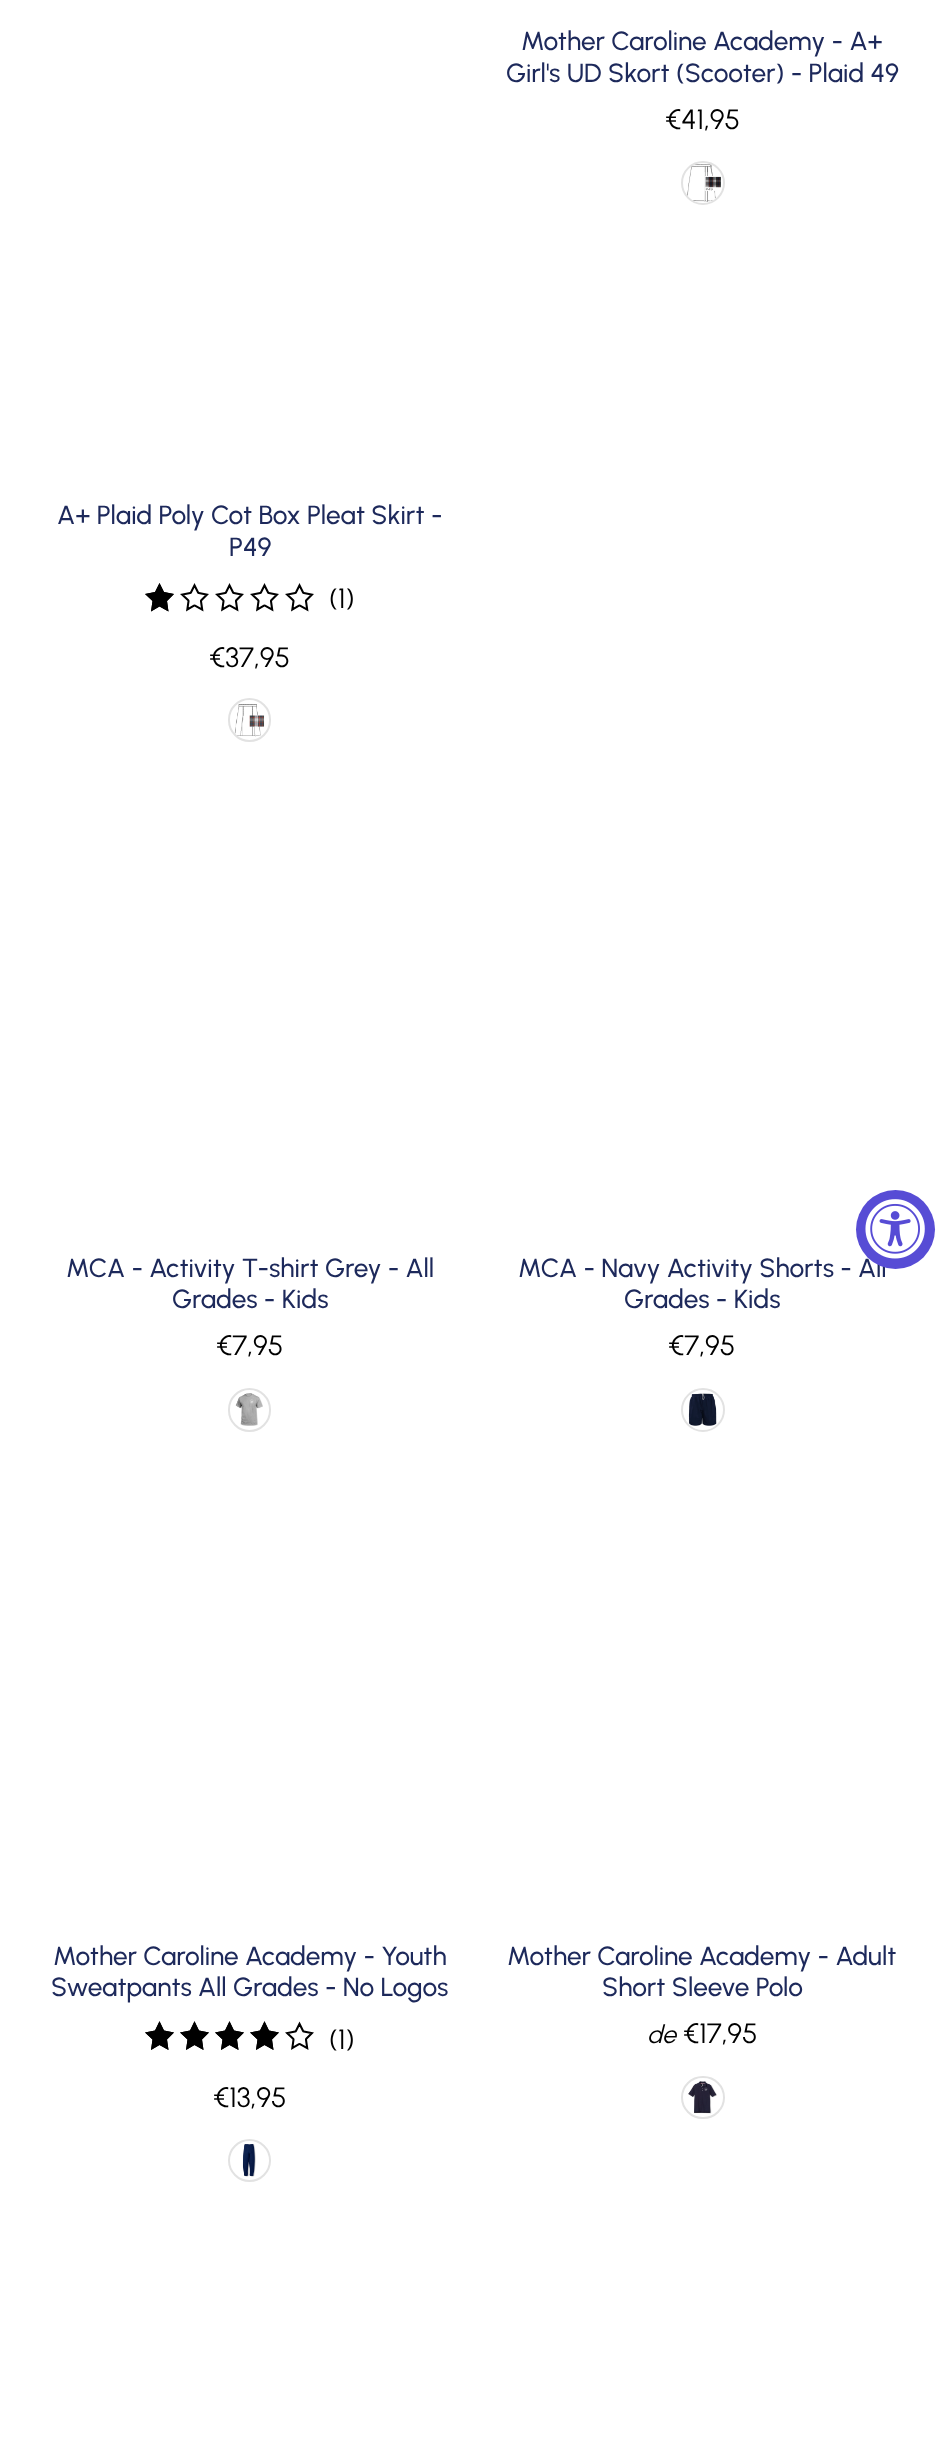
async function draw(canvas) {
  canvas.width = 952
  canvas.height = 2455
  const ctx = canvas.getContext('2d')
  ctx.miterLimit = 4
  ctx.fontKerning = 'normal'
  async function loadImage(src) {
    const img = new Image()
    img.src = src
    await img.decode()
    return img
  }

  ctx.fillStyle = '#fff'
  ctx.fillRect(0, 0, 952, 2455)
  ctx.font = '500 26.25px Urbanist'
  ctx.fillStyle = '#1d295b'
  ctx.fillText('Mother Caroline Academy - A+', 521, 50)
  ctx.fillText('Girl\'s UD Skort (Scooter) - Plaid 49', 506, 82)
  ctx.font = '28px Urbanist'
  ctx.fillStyle = '#000'
  ctx.fillText('€41,95', 665, 129)
  ctx.drawImage(await loadImage('image0.png'), 687, 164, 34, 38)
  ctx.beginPath()
  ctx.arc(703, 183, 21, 0, 2 * Math.PI)
  ctx.strokeStyle = '#e2e2e2'
  ctx.lineWidth = 2
  ctx.stroke()
  ctx.font = '500 26.25px Urbanist'
  ctx.fillStyle = '#1d295b'
  ctx.fillText('A+ Plaid Poly Cot Box Pleat Skirt -', 57, 524)
  ctx.fillText('P49', 229, 556)
  ctx.fillStyle = '#000'
  ctx.beginPath()
  ctx.moveTo(159.5, 583)
  ctx.lineTo(155, 592)
  ctx.lineTo(145, 594)
  ctx.lineTo(152.5, 601)
  ctx.lineTo(151, 611.5)
  ctx.lineTo(159.5, 606.5)
  ctx.lineTo(168.5, 611.5)
  ctx.lineTo(167, 601)
  ctx.lineTo(174, 594)
  ctx.lineTo(164, 592)
  ctx.closePath()
  ctx.fill()
  ctx.save()
  ctx.beginPath()
  ctx.moveTo(159.5, 583)
  ctx.lineTo(164, 592)
  ctx.lineTo(174, 594)
  ctx.lineTo(167, 601)
  ctx.lineTo(168.5, 611.5)
  ctx.lineTo(159.5, 606.5)
  ctx.lineTo(151, 611.5)
  ctx.lineTo(152.5, 601)
  ctx.lineTo(145, 594)
  ctx.lineTo(155, 592)
  ctx.closePath()
  ctx.clip()
  ctx.beginPath()
  ctx.moveTo(159.5, 583)
  ctx.lineTo(164, 592)
  ctx.lineTo(174, 594)
  ctx.lineTo(167, 601)
  ctx.lineTo(168.5, 611.5)
  ctx.lineTo(159.5, 606.5)
  ctx.lineTo(151, 611.5)
  ctx.lineTo(152.5, 601)
  ctx.lineTo(145, 594)
  ctx.lineTo(155, 592)
  ctx.closePath()
  ctx.strokeStyle = '#000'
  ctx.lineWidth = 4.1
  ctx.lineCap = 'round'
  ctx.lineJoin = 'round'
  ctx.stroke()
  ctx.restore()
  ctx.save()
  ctx.beginPath()
  ctx.moveTo(194.5, 583)
  ctx.lineTo(199, 592)
  ctx.lineTo(209, 594)
  ctx.lineTo(202, 601)
  ctx.lineTo(203.5, 611.5)
  ctx.lineTo(194.5, 606.5)
  ctx.lineTo(186, 611.5)
  ctx.lineTo(187.5, 601)
  ctx.lineTo(180, 594)
  ctx.lineTo(190, 592)
  ctx.closePath()
  ctx.clip()
  ctx.beginPath()
  ctx.moveTo(194.5, 583)
  ctx.lineTo(199, 592)
  ctx.lineTo(209, 594)
  ctx.lineTo(202, 601)
  ctx.lineTo(203.5, 611.5)
  ctx.lineTo(194.5, 606.5)
  ctx.lineTo(186, 611.5)
  ctx.lineTo(187.5, 601)
  ctx.lineTo(180, 594)
  ctx.lineTo(190, 592)
  ctx.closePath()
  ctx.strokeStyle = '#000'
  ctx.lineWidth = 4.1
  ctx.lineCap = 'round'
  ctx.lineJoin = 'round'
  ctx.stroke()
  ctx.restore()
  ctx.save()
  ctx.beginPath()
  ctx.moveTo(229.5, 583)
  ctx.lineTo(234, 592)
  ctx.lineTo(244, 594)
  ctx.lineTo(237, 601)
  ctx.lineTo(238.5, 611.5)
  ctx.lineTo(229.5, 606.5)
  ctx.lineTo(221, 611.5)
  ctx.lineTo(222.5, 601)
  ctx.lineTo(215, 594)
  ctx.lineTo(225, 592)
  ctx.closePath()
  ctx.clip()
  ctx.beginPath()
  ctx.moveTo(229.5, 583)
  ctx.lineTo(234, 592)
  ctx.lineTo(244, 594)
  ctx.lineTo(237, 601)
  ctx.lineTo(238.5, 611.5)
  ctx.lineTo(229.5, 606.5)
  ctx.lineTo(221, 611.5)
  ctx.lineTo(222.5, 601)
  ctx.lineTo(215, 594)
  ctx.lineTo(225, 592)
  ctx.closePath()
  ctx.strokeStyle = '#000'
  ctx.lineWidth = 4.1
  ctx.lineCap = 'round'
  ctx.lineJoin = 'round'
  ctx.stroke()
  ctx.restore()
  ctx.save()
  ctx.beginPath()
  ctx.moveTo(264.5, 583)
  ctx.lineTo(269, 592)
  ctx.lineTo(279, 594)
  ctx.lineTo(272, 601)
  ctx.lineTo(273.5, 611.5)
  ctx.lineTo(264.5, 606.5)
  ctx.lineTo(256, 611.5)
  ctx.lineTo(257.5, 601)
  ctx.lineTo(250, 594)
  ctx.lineTo(260, 592)
  ctx.closePath()
  ctx.clip()
  ctx.beginPath()
  ctx.moveTo(264.5, 583)
  ctx.lineTo(269, 592)
  ctx.lineTo(279, 594)
  ctx.lineTo(272, 601)
  ctx.lineTo(273.5, 611.5)
  ctx.lineTo(264.5, 606.5)
  ctx.lineTo(256, 611.5)
  ctx.lineTo(257.5, 601)
  ctx.lineTo(250, 594)
  ctx.lineTo(260, 592)
  ctx.closePath()
  ctx.strokeStyle = '#000'
  ctx.lineWidth = 4.1
  ctx.lineCap = 'round'
  ctx.lineJoin = 'round'
  ctx.stroke()
  ctx.restore()
  ctx.save()
  ctx.beginPath()
  ctx.moveTo(299.5, 583)
  ctx.lineTo(304, 592)
  ctx.lineTo(314, 594)
  ctx.lineTo(307, 601)
  ctx.lineTo(308.5, 611.5)
  ctx.lineTo(299.5, 606.5)
  ctx.lineTo(291, 611.5)
  ctx.lineTo(292.5, 601)
  ctx.lineTo(285, 594)
  ctx.lineTo(295, 592)
  ctx.closePath()
  ctx.clip()
  ctx.beginPath()
  ctx.moveTo(299.5, 583)
  ctx.lineTo(304, 592)
  ctx.lineTo(314, 594)
  ctx.lineTo(307, 601)
  ctx.lineTo(308.5, 611.5)
  ctx.lineTo(299.5, 606.5)
  ctx.lineTo(291, 611.5)
  ctx.lineTo(292.5, 601)
  ctx.lineTo(285, 594)
  ctx.lineTo(295, 592)
  ctx.closePath()
  ctx.strokeStyle = '#000'
  ctx.lineWidth = 4.1
  ctx.lineCap = 'round'
  ctx.lineJoin = 'round'
  ctx.stroke()
  ctx.restore()
  ctx.font = '28px Urbanist'
  ctx.fillText('(1)', 329, 608)
  ctx.fillText('€37,95', 209, 667)
  ctx.drawImage(await loadImage('image1.png'), 234, 704, 31, 33)
  ctx.beginPath()
  ctx.roundRect(229, 699, 41, 42, 20.5)
  ctx.stroke()
  ctx.font = '500 26.25px Urbanist'
  ctx.fillStyle = '#1d295b'
  ctx.fillText('MCA - Activity T-shirt Grey - All', 66, 1277)
  ctx.fillText('Grades - Kids', 172, 1308)
  ctx.font = '28px Urbanist'
  ctx.fillStyle = '#000'
  ctx.fillText('€7,95', 216, 1355)
  ctx.drawImage(await loadImage('image2.png'), 235, 1393, 28, 33)
  ctx.beginPath()
  ctx.roundRect(229, 1389, 41, 42, 20.5)
  ctx.stroke()
  ctx.font = '500 26.25px Urbanist'
  ctx.fillStyle = '#1d295b'
  ctx.fillText('MCA - Navy Activity Shorts - All', 518, 1277)
  ctx.fillText('Grades - Kids', 624, 1308)
  ctx.font = '28px Urbanist'
  ctx.fillStyle = '#000'
  ctx.fillText('€7,95', 668, 1355)
  ctx.drawImage(await loadImage('image3.png'), 688, 1393, 29, 33)
  ctx.beginPath()
  ctx.arc(703, 1410, 21, 0, 2 * Math.PI)
  ctx.stroke()
  ctx.font = '500 26.25px Urbanist'
  ctx.fillStyle = '#1d295b'
  ctx.fillText('Mother Caroline Academy - Youth', 53, 1965)
  ctx.fillText('Sweatpants All Grades - No Logos', 51, 1996)
  ctx.fillStyle = '#000'
  ctx.beginPath()
  ctx.moveTo(159.5, 2021)
  ctx.lineTo(155, 2030.5)
  ctx.lineTo(145, 2032.5)
  ctx.lineTo(152.5, 2039.5)
  ctx.lineTo(151, 2050)
  ctx.lineTo(159.5, 2045)
  ctx.lineTo(168.5, 2050)
  ctx.lineTo(167, 2039.5)
  ctx.lineTo(174, 2032.5)
  ctx.lineTo(164, 2030.5)
  ctx.closePath()
  ctx.fill()
  ctx.save()
  ctx.beginPath()
  ctx.moveTo(159.5, 2021.5)
  ctx.lineTo(164, 2030.5)
  ctx.lineTo(174, 2032.5)
  ctx.lineTo(167, 2039.5)
  ctx.lineTo(168.5, 2050)
  ctx.lineTo(159.5, 2045)
  ctx.lineTo(151, 2050)
  ctx.lineTo(152.5, 2039.5)
  ctx.lineTo(145, 2032.5)
  ctx.lineTo(155, 2030.5)
  ctx.closePath()
  ctx.clip()
  ctx.beginPath()
  ctx.moveTo(159.5, 2021.5)
  ctx.lineTo(164, 2030.5)
  ctx.lineTo(174, 2032.5)
  ctx.lineTo(167, 2039.5)
  ctx.lineTo(168.5, 2050)
  ctx.lineTo(159.5, 2045)
  ctx.lineTo(151, 2050)
  ctx.lineTo(152.5, 2039.5)
  ctx.lineTo(145, 2032.5)
  ctx.lineTo(155, 2030.5)
  ctx.closePath()
  ctx.strokeStyle = '#000'
  ctx.lineWidth = 4.1
  ctx.lineCap = 'round'
  ctx.lineJoin = 'round'
  ctx.stroke()
  ctx.restore()
  ctx.beginPath()
  ctx.moveTo(194.5, 2021)
  ctx.lineTo(190, 2030.5)
  ctx.lineTo(180, 2032.5)
  ctx.lineTo(187.5, 2039.5)
  ctx.lineTo(186, 2050)
  ctx.lineTo(194.5, 2045)
  ctx.lineTo(203.5, 2050)
  ctx.lineTo(202, 2039.5)
  ctx.lineTo(209, 2032.5)
  ctx.lineTo(199, 2030.5)
  ctx.closePath()
  ctx.fill()
  ctx.save()
  ctx.beginPath()
  ctx.moveTo(194.5, 2021.5)
  ctx.lineTo(199, 2030.5)
  ctx.lineTo(209, 2032.5)
  ctx.lineTo(202, 2039.5)
  ctx.lineTo(203.5, 2050)
  ctx.lineTo(194.5, 2045)
  ctx.lineTo(186, 2050)
  ctx.lineTo(187.5, 2039.5)
  ctx.lineTo(180, 2032.5)
  ctx.lineTo(190, 2030.5)
  ctx.closePath()
  ctx.clip()
  ctx.beginPath()
  ctx.moveTo(194.5, 2021.5)
  ctx.lineTo(199, 2030.5)
  ctx.lineTo(209, 2032.5)
  ctx.lineTo(202, 2039.5)
  ctx.lineTo(203.5, 2050)
  ctx.lineTo(194.5, 2045)
  ctx.lineTo(186, 2050)
  ctx.lineTo(187.5, 2039.5)
  ctx.lineTo(180, 2032.5)
  ctx.lineTo(190, 2030.5)
  ctx.closePath()
  ctx.strokeStyle = '#000'
  ctx.lineWidth = 4.1
  ctx.lineCap = 'round'
  ctx.lineJoin = 'round'
  ctx.stroke()
  ctx.restore()
  ctx.beginPath()
  ctx.moveTo(229.5, 2021)
  ctx.lineTo(225, 2030.5)
  ctx.lineTo(215, 2032.5)
  ctx.lineTo(222.5, 2039.5)
  ctx.lineTo(221, 2050)
  ctx.lineTo(229.5, 2045)
  ctx.lineTo(238.5, 2050)
  ctx.lineTo(237, 2039.5)
  ctx.lineTo(244, 2032.5)
  ctx.lineTo(234, 2030.5)
  ctx.closePath()
  ctx.fill()
  ctx.save()
  ctx.beginPath()
  ctx.moveTo(229.5, 2021.5)
  ctx.lineTo(234, 2030.5)
  ctx.lineTo(244, 2032.5)
  ctx.lineTo(237, 2039.5)
  ctx.lineTo(238.5, 2050)
  ctx.lineTo(229.5, 2045)
  ctx.lineTo(221, 2050)
  ctx.lineTo(222.5, 2039.5)
  ctx.lineTo(215, 2032.5)
  ctx.lineTo(225, 2030.5)
  ctx.closePath()
  ctx.clip()
  ctx.beginPath()
  ctx.moveTo(229.5, 2021.5)
  ctx.lineTo(234, 2030.5)
  ctx.lineTo(244, 2032.5)
  ctx.lineTo(237, 2039.5)
  ctx.lineTo(238.5, 2050)
  ctx.lineTo(229.5, 2045)
  ctx.lineTo(221, 2050)
  ctx.lineTo(222.5, 2039.5)
  ctx.lineTo(215, 2032.5)
  ctx.lineTo(225, 2030.5)
  ctx.closePath()
  ctx.strokeStyle = '#000'
  ctx.lineWidth = 4.1
  ctx.lineCap = 'round'
  ctx.lineJoin = 'round'
  ctx.stroke()
  ctx.restore()
  ctx.beginPath()
  ctx.moveTo(264.5, 2021)
  ctx.lineTo(260, 2030.5)
  ctx.lineTo(250, 2032.5)
  ctx.lineTo(257.5, 2039.5)
  ctx.lineTo(256, 2050)
  ctx.lineTo(264.5, 2045)
  ctx.lineTo(273.5, 2050)
  ctx.lineTo(272, 2039.5)
  ctx.lineTo(279, 2032.5)
  ctx.lineTo(269, 2030.5)
  ctx.closePath()
  ctx.fill()
  ctx.save()
  ctx.beginPath()
  ctx.moveTo(264.5, 2021.5)
  ctx.lineTo(269, 2030.5)
  ctx.lineTo(279, 2032.5)
  ctx.lineTo(272, 2039.5)
  ctx.lineTo(273.5, 2050)
  ctx.lineTo(264.5, 2045)
  ctx.lineTo(256, 2050)
  ctx.lineTo(257.5, 2039.5)
  ctx.lineTo(250, 2032.5)
  ctx.lineTo(260, 2030.5)
  ctx.closePath()
  ctx.clip()
  ctx.beginPath()
  ctx.moveTo(264.5, 2021.5)
  ctx.lineTo(269, 2030.5)
  ctx.lineTo(279, 2032.5)
  ctx.lineTo(272, 2039.5)
  ctx.lineTo(273.5, 2050)
  ctx.lineTo(264.5, 2045)
  ctx.lineTo(256, 2050)
  ctx.lineTo(257.5, 2039.5)
  ctx.lineTo(250, 2032.5)
  ctx.lineTo(260, 2030.5)
  ctx.closePath()
  ctx.strokeStyle = '#000'
  ctx.lineWidth = 4.1
  ctx.lineCap = 'round'
  ctx.lineJoin = 'round'
  ctx.stroke()
  ctx.restore()
  ctx.save()
  ctx.beginPath()
  ctx.moveTo(299.5, 2021.5)
  ctx.lineTo(304, 2030.5)
  ctx.lineTo(314, 2032.5)
  ctx.lineTo(307, 2039.5)
  ctx.lineTo(308.5, 2050)
  ctx.lineTo(299.5, 2045)
  ctx.lineTo(291, 2050)
  ctx.lineTo(292.5, 2039.5)
  ctx.lineTo(285, 2032.5)
  ctx.lineTo(295, 2030.5)
  ctx.closePath()
  ctx.clip()
  ctx.beginPath()
  ctx.moveTo(299.5, 2021.5)
  ctx.lineTo(304, 2030.5)
  ctx.lineTo(314, 2032.5)
  ctx.lineTo(307, 2039.5)
  ctx.lineTo(308.5, 2050)
  ctx.lineTo(299.5, 2045)
  ctx.lineTo(291, 2050)
  ctx.lineTo(292.5, 2039.5)
  ctx.lineTo(285, 2032.5)
  ctx.lineTo(295, 2030.5)
  ctx.closePath()
  ctx.strokeStyle = '#000'
  ctx.lineWidth = 4.1
  ctx.lineCap = 'round'
  ctx.lineJoin = 'round'
  ctx.stroke()
  ctx.restore()
  ctx.font = '28px Urbanist'
  ctx.fillText('(1)', 329, 2049)
  ctx.fillText('€13,95', 213, 2107)
  ctx.drawImage(await loadImage('image4.png'), 242, 2144, 14, 33)
  ctx.beginPath()
  ctx.arc(249.5, 2160.5, 20.5, 0, 2 * Math.PI)
  ctx.stroke()
  ctx.font = '500 26.25px Urbanist'
  ctx.fillStyle = '#1d295b'
  ctx.fillText('Mother Caroline Academy - Adult', 507, 1965)
  ctx.fillText('Short Sleeve Polo', 602, 1996)
  ctx.font = 'italic 25px Urbanist'
  ctx.fillStyle = '#000'
  ctx.fillText('de', 647, 2043)
  ctx.font = '28px Urbanist'
  ctx.fillText('€17,95', 683, 2043)
  ctx.drawImage(await loadImage('image5.png'), 688, 2081, 29, 33)
  ctx.beginPath()
  ctx.roundRect(682, 2077, 42, 41, 20.5)
  ctx.stroke()
  ctx.fillStyle = '#574cd5'
  ctx.beginPath()
  ctx.arc(895.5, 1229.5, 39.5, 0, 2 * Math.PI)
  ctx.fill()
  ctx.drawImage(await loadImage('image6.png'), 865, 1199, 60, 60)
}

draw(document.querySelector('canvas'))
